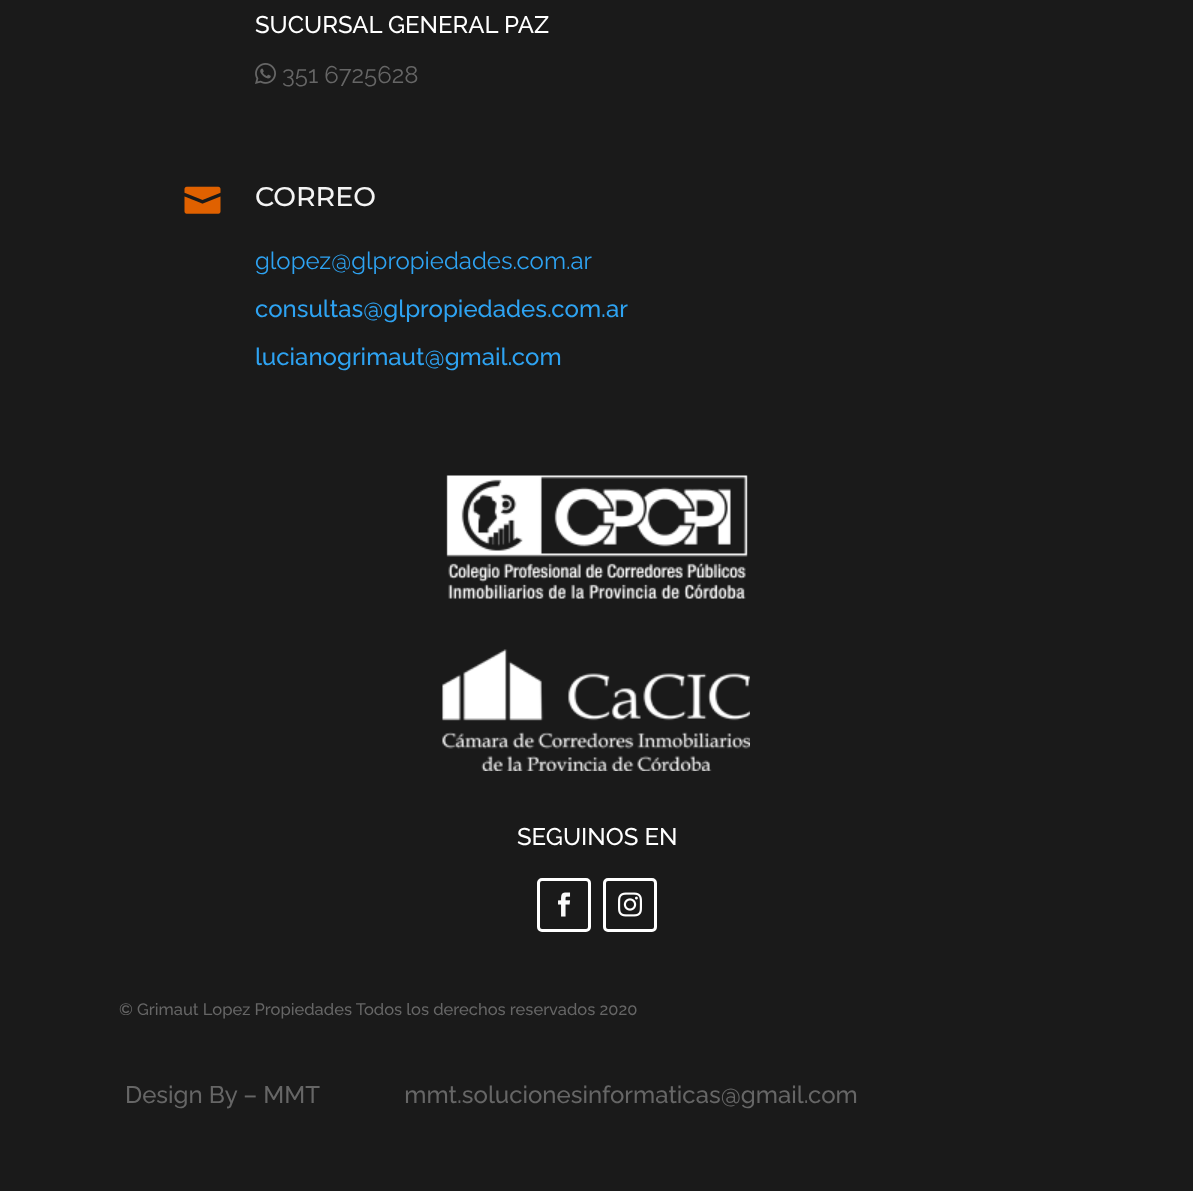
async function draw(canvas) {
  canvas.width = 1193
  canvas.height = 1191
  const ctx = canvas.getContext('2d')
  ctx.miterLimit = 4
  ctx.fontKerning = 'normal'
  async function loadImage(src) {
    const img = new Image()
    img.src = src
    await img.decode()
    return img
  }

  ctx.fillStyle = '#1a1a1a'
  ctx.fillRect(0, 0, 1193, 1191)
  ctx.font = '500 24px Raleway'
  ctx.fillStyle = '#fff'
  ctx.fillText('SUCURSAL GENERAL PAZ', 255, 33)
  ctx.drawImage(await loadImage('image0.png'), 255, 63, 21, 21)
  ctx.font = '24px Raleway'
  ctx.fillStyle = '#666'
  ctx.fillText('351 6725628', 282, 83)
  ctx.drawImage(await loadImage('image1.png'), 184, 186, 37, 28)
  ctx.font = '500 27px Montserrat'
  ctx.fillStyle = '#f4f4f4'
  ctx.fillText('CORREO', 255, 206)
  ctx.font = '24px Raleway'
  ctx.fillStyle = '#2ea3f2'
  ctx.fillText('glopez@glpropiedades.com.ar', 255, 269)
  ctx.font = '500 24px Raleway'
  ctx.fillText('consultas@glpropiedades.com.ar', 255, 317)
  ctx.fillText('lucianogrimaut@gmail.com', 255, 365)
  ctx.drawImage(await loadImage('image2.png'), 446, 475, 302, 124)
  ctx.drawImage(await loadImage('image3.png'), 442, 649, 308, 122)
  ctx.fillStyle = '#fff'
  ctx.fillText('SEGUINOS EN', 517, 845)
  ctx.beginPath()
  ctx.roundRect(538.5, 879.5, 51, 51, 3.5)
  ctx.strokeStyle = '#fff'
  ctx.lineWidth = 3
  ctx.stroke()
  ctx.drawImage(await loadImage('image4.png'), 558, 892, 13, 25)
  ctx.beginPath()
  ctx.roundRect(604.5, 879.5, 51, 51, 3.5)
  ctx.stroke()
  ctx.drawImage(await loadImage('image5.png'), 618, 892, 24, 25)
  ctx.font = '500 16.5px Raleway'
  ctx.fillStyle = '#666'
  ctx.fillText('© Grimaut Lopez Propiedades Todos los derechos reservados 2020', 119, 1015)
  ctx.font = '500 24px Raleway'
  ctx.fillText('Design By – MMT              mmt.solucionesinformaticas@gmail.com', 125, 1103)
}

draw(document.querySelector('canvas'))
